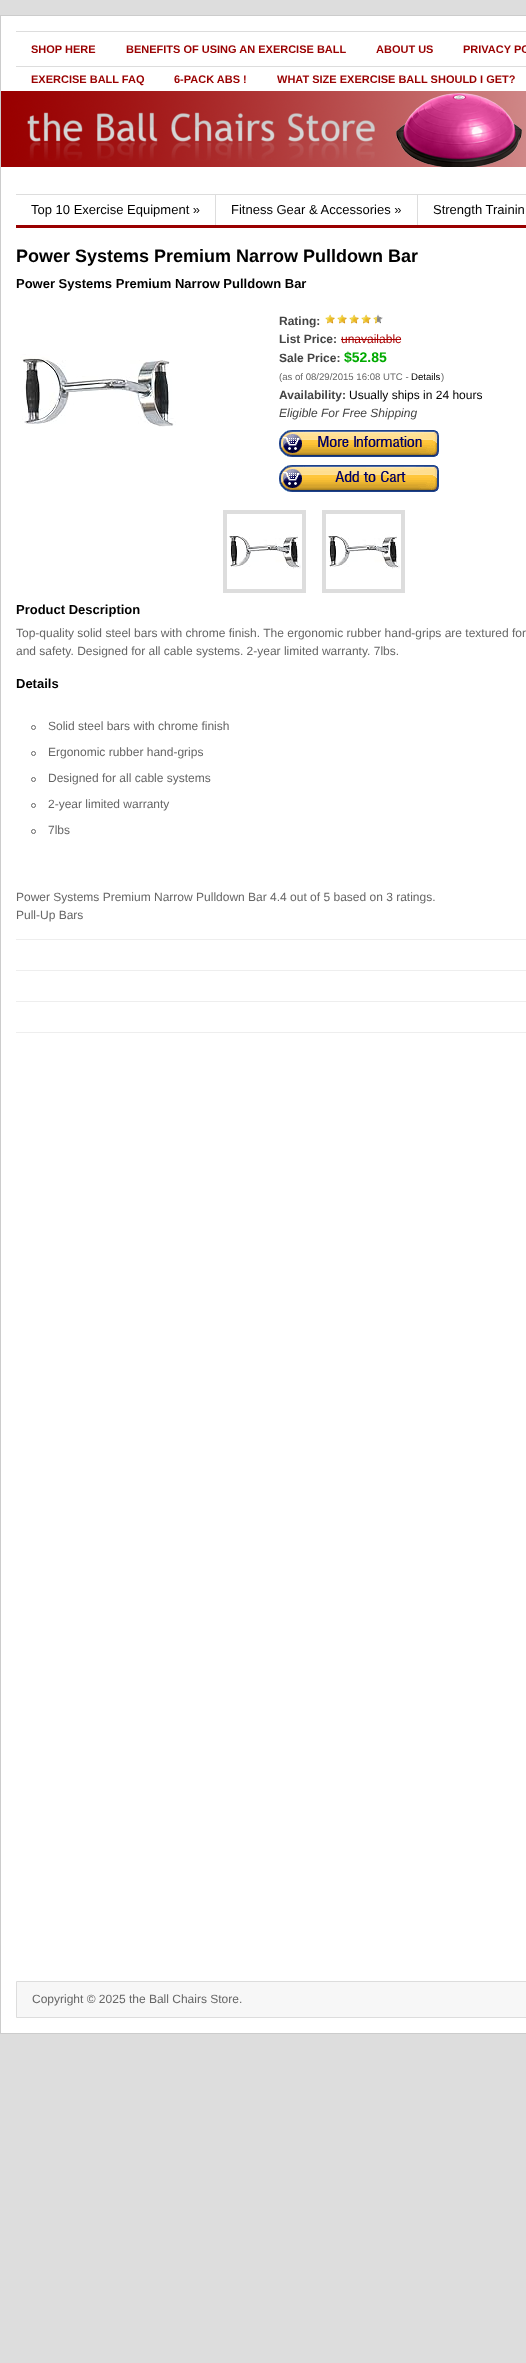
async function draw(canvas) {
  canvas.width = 526
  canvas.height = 2363
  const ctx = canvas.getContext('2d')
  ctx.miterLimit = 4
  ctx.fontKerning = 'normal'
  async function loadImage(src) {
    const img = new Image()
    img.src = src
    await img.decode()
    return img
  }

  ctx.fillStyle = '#ddd'
  ctx.fillRect(0, 0, 526, 2363)
  ctx.fillStyle = '#fff'
  ctx.fillRect(1, 16, 525, 2017)
  ctx.drawImage(await loadImage('image0.png'), 1, 91, 525, 76)
  ctx.strokeStyle = '#ccc'
  ctx.strokeRect(0.5, 15.5, 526, 2018)
  ctx.fillStyle = '#ddd'
  ctx.fillRect(16, 31, 510, 1)
  ctx.fillRect(16, 66, 510, 1)
  ctx.font = 'bold 11px Liberation Sans'
  ctx.fillStyle = '#900'
  ctx.fillText('SHOP HERE', 31, 53)
  ctx.fillText('BENEFITS OF USING AN EXERCISE BALL', 126, 53)
  ctx.fillText('ABOUT US', 376, 53)
  ctx.fillText('PRIVACY PO', 463, 53)
  ctx.fillText('EXERCISE BALL FAQ', 31, 83)
  ctx.fillText('6-PACK ABS !', 174, 83)
  ctx.fillText('WHAT SIZE EXERCISE BALL SHOULD I GET?', 277, 83)
  ctx.fillStyle = '#ddd'
  ctx.fillRect(16, 194, 510, 1)
  ctx.fillStyle = '#900'
  ctx.fillRect(16, 225, 510, 3)
  ctx.fillStyle = '#ddd'
  ctx.fillRect(215, 195, 1, 30)
  ctx.font = '13px Liberation Sans'
  ctx.fillStyle = '#000'
  ctx.fillText('Top 10 Exercise Equipment »', 31, 214)
  ctx.fillStyle = '#ddd'
  ctx.fillRect(417, 195, 1, 30)
  ctx.fillStyle = '#000'
  ctx.fillText('Fitness Gear & Accessories »', 231, 214)
  ctx.fillText('Strength Trainin', 433, 214)
  ctx.font = 'bold 18px Liberation Sans'
  ctx.fillText('Power Systems Premium Narrow Pulldown Bar', 16, 262)
  ctx.font = 'bold 13px Liberation Sans'
  ctx.fillText('Power Systems Premium Narrow Pulldown Bar', 16, 288)
  ctx.drawImage(await loadImage('image1.png'), 20, 354, 156, 73)
  ctx.font = 'bold 12px Liberation Sans'
  ctx.fillStyle = '#444'
  ctx.fillText('Rating:', 279, 325)
  ctx.drawImage(await loadImage('image2.png'), 325, 314, 58, 10)
  ctx.fillText('List Price:', 279, 343)
  ctx.font = '12px Liberation Sans'
  ctx.fillStyle = '#a00'
  ctx.fillText('unavailable', 341, 343)
  ctx.fillRect(341, 339, 60, 1)
  ctx.font = 'bold 12px Liberation Sans'
  ctx.fillStyle = '#444'
  ctx.fillText('Sale Price:', 279, 362)
  ctx.font = 'bold 14px Liberation Sans'
  ctx.fillStyle = '#0a0'
  ctx.fillText('$52.85', 344, 362)
  ctx.font = '9.6px Liberation Sans'
  ctx.fillStyle = '#666'
  ctx.fillText('(as of 08/29/2015 16:08 UTC -', 279, 380)
  ctx.fillStyle = '#000'
  ctx.fillText('Details', 411, 380)
  ctx.fillStyle = '#666'
  ctx.fillText(')', 441, 380)
  ctx.font = 'bold 12px Liberation Sans'
  ctx.fillStyle = '#444'
  ctx.fillText('Availability:', 279, 399)
  ctx.font = '12px Liberation Sans'
  ctx.fillStyle = '#000'
  ctx.fillText('Usually ships in 24 hours', 349, 399)
  ctx.font = 'italic 12px Liberation Sans'
  ctx.fillStyle = '#444'
  ctx.fillText('Eligible For Free Shipping', 279, 417)
  ctx.drawImage(await loadImage('image3.png'), 279, 430, 160, 27)
  ctx.drawImage(await loadImage('image4.png'), 279, 465, 160, 27)
  ctx.strokeStyle = '#ddd'
  ctx.lineWidth = 4
  ctx.strokeRect(225, 512, 79, 79)
  ctx.strokeRect(324, 512, 79, 79)
  ctx.drawImage(await loadImage('image5.png'), 229, 534, 72, 35)
  ctx.drawImage(await loadImage('image5.png'), 328, 534, 72, 35)
  ctx.font = 'bold 13px Liberation Sans'
  ctx.fillStyle = '#000'
  ctx.fillText('Product Description', 16, 614)
  ctx.font = '12px Liberation Sans'
  ctx.fillStyle = '#666'
  ctx.fillText('Top-quality solid steel bars with chrome finish. The ergonomic rubber hand-grips are textured for', 16, 637)
  ctx.fillText('and safety. Designed for all cable systems. 2-year limited warranty. 7lbs.', 16, 655)
  ctx.font = 'bold 13px Liberation Sans'
  ctx.fillStyle = '#000'
  ctx.fillText('Details', 16, 688)
  ctx.beginPath()
  ctx.arc(33.5, 727.5, 2, 0, 2 * Math.PI)
  ctx.strokeStyle = '#666'
  ctx.lineWidth = 1
  ctx.stroke()
  ctx.font = '12px Liberation Sans'
  ctx.fillStyle = '#666'
  ctx.fillText('Solid steel bars with chrome finish', 48, 730)
  ctx.beginPath()
  ctx.arc(33.5, 753.5, 2, 0, 2 * Math.PI)
  ctx.stroke()
  ctx.fillText('Ergonomic rubber hand-grips', 48, 756)
  ctx.beginPath()
  ctx.arc(33.5, 779.5, 2, 0, 2 * Math.PI)
  ctx.stroke()
  ctx.fillText('Designed for all cable systems', 48, 782)
  ctx.beginPath()
  ctx.arc(33.5, 805.5, 2, 0, 2 * Math.PI)
  ctx.stroke()
  ctx.fillText('2-year limited warranty', 48, 808)
  ctx.beginPath()
  ctx.arc(33.5, 831.5, 2, 0, 2 * Math.PI)
  ctx.stroke()
  ctx.fillText('7lbs', 48, 834)
  ctx.fillText('Power Systems Premium Narrow Pulldown Bar 4.4 out of 5 based on 3 ratings.', 16, 901)
  ctx.fillText('Pull-Up Bars', 16, 919)
  ctx.fillStyle = '#eee'
  ctx.fillRect(16, 939, 510, 1)
  ctx.fillRect(16, 970, 510, 1)
  ctx.fillRect(16, 1001, 510, 1)
  ctx.fillRect(16, 1032, 510, 1)
  ctx.fillStyle = '#f7f7f7'
  ctx.beginPath()
  ctx.rect(16.5, 1981.5, 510, 36)
  ctx.fill()
  ctx.strokeStyle = '#ddd'
  ctx.stroke()
  ctx.fillStyle = '#666'
  ctx.fillText('Copyright © 2025 the Ball Chairs Store.', 32, 2003)
}

draw(document.querySelector('canvas'))
